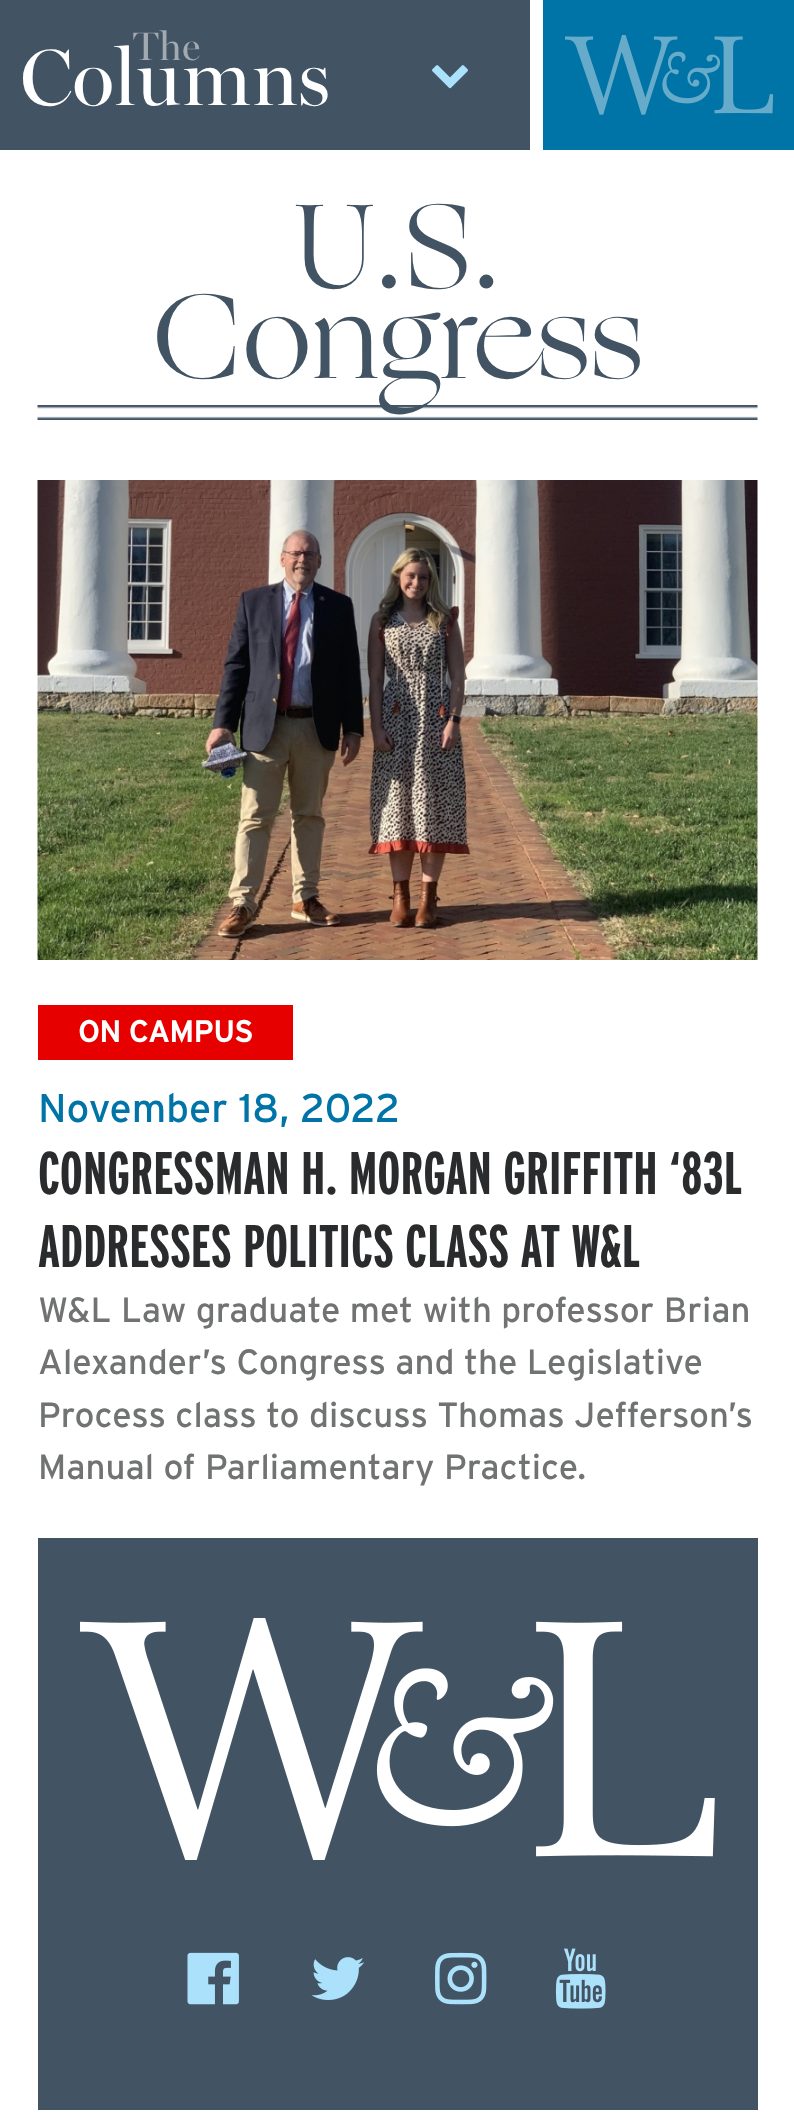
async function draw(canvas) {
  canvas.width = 794
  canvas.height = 2114
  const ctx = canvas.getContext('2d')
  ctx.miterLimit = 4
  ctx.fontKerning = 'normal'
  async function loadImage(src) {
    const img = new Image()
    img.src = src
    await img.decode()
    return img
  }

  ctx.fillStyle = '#fff'
  ctx.fillRect(0, 0, 794, 2114)
  ctx.fillStyle = '#425363'
  ctx.fillRect(0, 0, 530, 150)
  ctx.drawImage(await loadImage('image0.png'), 432, 65, 36, 24)
  ctx.fillStyle = '#0074a7'
  ctx.fillRect(543, 0, 251, 150)
  ctx.drawImage(await loadImage('image1.png'), 565, 35, 208, 80)
  ctx.font = '80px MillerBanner'
  ctx.fillStyle = '#fff'
  ctx.fillText('Columns', 20, 105)
  ctx.font = '40px MillerBanner'
  ctx.fillStyle = '#a1a9b1'
  ctx.fillText('The', 133, 60)
  ctx.drawImage(await loadImage('image2.png'), 37, 405, 721, 15)
  ctx.font = '120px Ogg'
  ctx.fillStyle = '#425363'
  ctx.fillText('U.S.', 294, 288)
  ctx.fillText('Congress', 152, 378)
  ctx.drawImage(await loadImage('image3.png'), 37, 480, 721, 480)
  ctx.fillStyle = '#e70000'
  ctx.fillRect(38, 1005, 255, 55)
  ctx.font = 'bold 30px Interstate'
  ctx.fillStyle = '#fff'
  ctx.fillText('ON CAMPUS', 78, 1042)
  ctx.font = '40px Interstate'
  ctx.fillStyle = '#0074a7'
  ctx.fillText('November 18, 2022', 38, 1122)
  ctx.font = 'bold 60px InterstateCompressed'
  ctx.fillStyle = '#292b2c'
  ctx.fillText('CONGRESSMAN H. MORGAN GRIFFITH ‘83L', 38, 1194)
  ctx.fillText('ADDRESSES POLITICS CLASS AT W&L', 38, 1267)
  ctx.font = '35px Interstate'
  ctx.fillStyle = '#707372'
  ctx.fillText('W&L Law graduate met with professor Brian', 38, 1322)
  ctx.fillText('Alexander’s Congress and the Legislative', 38, 1374)
  ctx.fillText('Process class to discuss Thomas Jefferson’s', 38, 1427)
  ctx.fillText('Manual of Parliamentary Practice.', 38, 1479)
  ctx.fillStyle = '#425363'
  ctx.fillRect(38, 1538, 720, 572)
  ctx.drawImage(await loadImage('image4.png'), 80, 1618, 635, 242)
  ctx.drawImage(await loadImage('image5.png'), 187, 1952, 52, 53)
  ctx.drawImage(await loadImage('image6.png'), 311, 1957, 54, 43)
  ctx.drawImage(await loadImage('image7.png'), 435, 1952, 52, 53)
  ctx.drawImage(await loadImage('image8.png'), 555, 1948, 51, 61)
}

draw(document.querySelector('canvas'))
